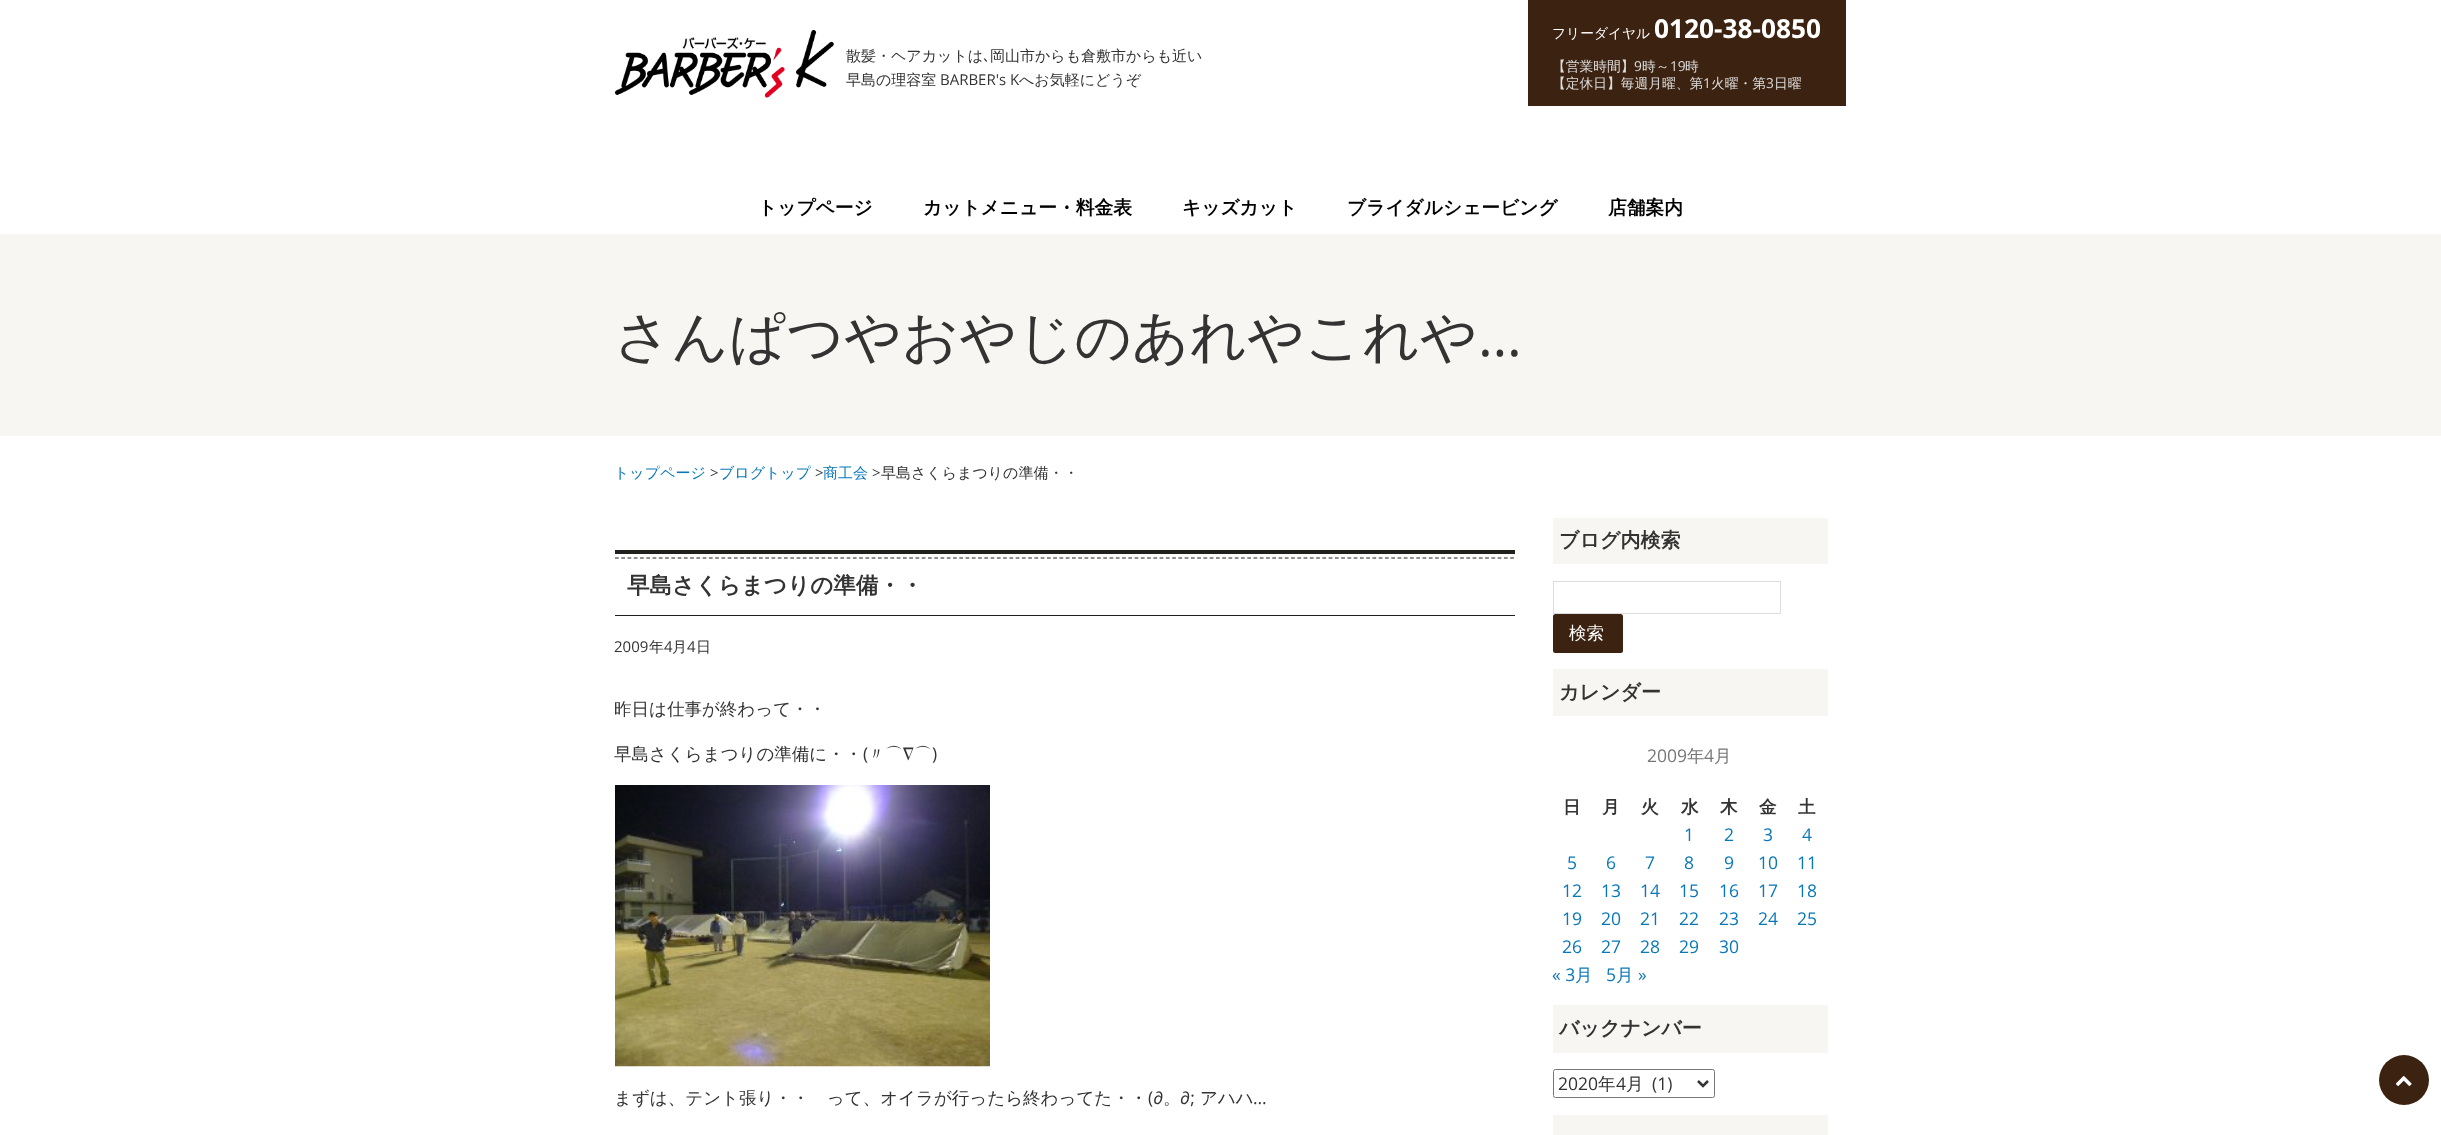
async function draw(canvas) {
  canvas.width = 2441
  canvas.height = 1135
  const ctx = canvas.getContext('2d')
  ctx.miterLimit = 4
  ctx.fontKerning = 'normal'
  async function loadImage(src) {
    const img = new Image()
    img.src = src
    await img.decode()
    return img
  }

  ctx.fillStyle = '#fff'
  ctx.fillRect(0, 0, 2441, 1135)
  ctx.drawImage(await loadImage('image0.png'), 615, 30, 219, 68)
  ctx.font = '500 15px WenQuanYi Zen Hei'
  ctx.fillStyle = '#333'
  ctx.fillText('散髪・ヘアカットは', 846, 61)
  ctx.font = '15px IPAPGothic'
  ctx.fillText('､', 983, 61)
  ctx.font = '500 15px WenQuanYi Zen Hei'
  ctx.fillText('岡山市からも倉敷市からも近い', 990, 61)
  ctx.fillText('早島の理容室', 846, 85)
  ctx.font = '15px Open Sans'
  ctx.fillText('BARBER\'s K', 940, 85)
  ctx.font = '500 15px WenQuanYi Zen Hei'
  ctx.fillText('へお気軽にどうぞ', 1019, 85)
  ctx.fillStyle = '#3c2211'
  ctx.fillRect(1528, 0, 318, 106)
  ctx.font = '500 13.75px WenQuanYi Zen Hei'
  ctx.fillStyle = '#fff'
  ctx.fillText('フリーダイヤル', 1552, 38)
  ctx.font = 'bold 26.25px Open Sans'
  ctx.fillText('0120-38-0850', 1654, 38)
  ctx.font = '500 13.75px WenQuanYi Zen Hei'
  ctx.fillStyle = '#ddd'
  ctx.fillText('【営業時間】', 1552, 71)
  ctx.font = '13.75px Open Sans'
  ctx.fillText('9', 1634, 71)
  ctx.font = '500 13.75px WenQuanYi Zen Hei'
  ctx.fillText('時～', 1642, 71)
  ctx.font = '13.75px Open Sans'
  ctx.fillText('19', 1670, 71)
  ctx.font = '500 13.75px WenQuanYi Zen Hei'
  ctx.fillText('時', 1685, 71)
  ctx.fillText('【定休日】毎週月曜、第', 1552, 88)
  ctx.font = '13.75px Open Sans'
  ctx.fillText('1', 1703, 88)
  ctx.font = '500 13.75px WenQuanYi Zen Hei'
  ctx.fillText('火曜・第', 1711, 88)
  ctx.font = '13.75px Open Sans'
  ctx.fillText('3', 1766, 88)
  ctx.font = '500 13.75px WenQuanYi Zen Hei'
  ctx.fillText('日曜', 1774, 88)
  ctx.font = 'bold 18.75px WenQuanYi Zen Hei'
  ctx.fillStyle = '#000'
  ctx.fillText('トップページ', 758, 214)
  ctx.fillText('カットメニュー・料金表', 923, 214)
  ctx.fillText('キッズカット', 1182, 214)
  ctx.fillText('ブライダルシェービング', 1347, 214)
  ctx.fillText('店舗案内', 1608, 214)
  ctx.fillStyle = '#f8f6f2'
  ctx.fillRect(0, 234, 2441, 202)
  ctx.font = '500 56.25px WenQuanYi Zen Hei'
  ctx.fillStyle = '#333'
  ctx.fillText('さんぱつやおやじのあれやこれや', 614, 356)
  ctx.font = '56.25px Open Sans'
  ctx.fillText('…', 1478, 356)
  ctx.font = '500 15px WenQuanYi Zen Hei'
  ctx.fillStyle = '#0a78b8'
  ctx.fillText('トップページ', 614, 478)
  ctx.font = '15px Open Sans'
  ctx.fillStyle = '#333'
  ctx.fillText('>', 710, 478)
  ctx.font = '500 15px WenQuanYi Zen Hei'
  ctx.fillStyle = '#0a78b8'
  ctx.fillText('ブログトップ', 719, 478)
  ctx.font = '15px Open Sans'
  ctx.fillStyle = '#333'
  ctx.fillText('>', 815, 478)
  ctx.font = '500 15px WenQuanYi Zen Hei'
  ctx.fillStyle = '#0a78b8'
  ctx.fillText('商工会', 823, 478)
  ctx.font = '15px Open Sans'
  ctx.fillStyle = '#333'
  ctx.fillText('>', 872, 478)
  ctx.font = '500 15px WenQuanYi Zen Hei'
  ctx.fillText('早島さくらまつりの準備・・', 881, 478)
  ctx.fillStyle = '#21201d'
  ctx.fillRect(615, 550, 900, 4)
  ctx.fillRect(615, 615, 900, 1)
  ctx.beginPath()
  ctx.moveTo(615, 558)
  ctx.lineTo(1515, 558)
  ctx.strokeStyle = '#21201d'
  ctx.lineWidth = 1.2
  ctx.setLineDash([3.75, 2.51])
  ctx.stroke()
  ctx.font = 'bold 22.5px WenQuanYi Zen Hei'
  ctx.fillStyle = '#333'
  ctx.fillText('早島さくらまつりの準備・・', 627, 593)
  ctx.font = '15px Open Sans'
  ctx.fillText('2009', 614, 652)
  ctx.font = '500 15px WenQuanYi Zen Hei'
  ctx.fillText('年', 649, 652)
  ctx.font = '15px Open Sans'
  ctx.fillText('4', 664, 652)
  ctx.font = '500 15px WenQuanYi Zen Hei'
  ctx.fillText('月', 672, 652)
  ctx.font = '15px Open Sans'
  ctx.fillText('4', 687, 652)
  ctx.font = '500 15px WenQuanYi Zen Hei'
  ctx.fillText('日', 696, 652)
  ctx.font = '500 17.5px WenQuanYi Zen Hei'
  ctx.fillText('昨日は仕事が終わって・・', 614, 715)
  ctx.fillText('早島さくらまつりの準備に・・ 〃⌒∇⌒', 614, 760)
  ctx.font = '17.5px Open Sans'
  ctx.fillText('(', 863, 760)
  ctx.fillText(')', 932, 760)
  ctx.drawImage(await loadImage('image1.png'), 615, 785, 375, 282)
  ctx.font = '500 17.5px WenQuanYi Zen Hei'
  ctx.fillText('まずは、テント張り・・　って、オイラが行ったら終わってた・・', 614, 1104)
  ctx.font = '17.5px Open Sans'
  ctx.fillText('(∂', 1148, 1104)
  ctx.font = '500 17.5px WenQuanYi Zen Hei'
  ctx.fillText('。', 1163, 1104)
  ctx.font = '17.5px Open Sans'
  ctx.fillText('∂;', 1180, 1104)
  ctx.font = '500 17.5px WenQuanYi Zen Hei'
  ctx.fillText('アハハ', 1200, 1104)
  ctx.font = '17.5px Open Sans'
  ctx.fillText('…', 1253, 1104)
  ctx.fillStyle = '#f8f6f2'
  ctx.fillRect(1553, 518, 275, 46)
  ctx.font = 'bold 20px WenQuanYi Zen Hei'
  ctx.fillStyle = '#333'
  ctx.fillText('ブログ内検索', 1559, 547)
  ctx.strokeStyle = '#ddd'
  ctx.lineWidth = 1
  ctx.setLineDash([])
  ctx.strokeRect(1553.5, 581.5, 227, 32)
  ctx.fillStyle = '#3c2211'
  ctx.beginPath()
  ctx.roundRect(1553, 614, 70, 39, 2.5)
  ctx.fill()
  ctx.font = '500 17.5px WenQuanYi Zen Hei'
  ctx.fillStyle = '#fff'
  ctx.fillText('検索', 1569, 639)
  ctx.fillStyle = '#f8f6f2'
  ctx.fillRect(1553, 669, 275, 47)
  ctx.font = 'bold 20px WenQuanYi Zen Hei'
  ctx.fillStyle = '#333'
  ctx.fillText('カレンダー', 1559, 699)
  ctx.font = '17.5px Open Sans'
  ctx.fillStyle = '#777'
  ctx.fillText('2009', 1647, 762)
  ctx.font = '500 17.5px WenQuanYi Zen Hei'
  ctx.fillText('年', 1687, 762)
  ctx.font = '17.5px Open Sans'
  ctx.fillText('4', 1704, 762)
  ctx.font = '500 17.5px WenQuanYi Zen Hei'
  ctx.fillText('月', 1714, 762)
  ctx.font = 'bold 17.5px WenQuanYi Zen Hei'
  ctx.fillStyle = '#333'
  ctx.fillText('日', 1563, 813)
  ctx.fillText('月', 1602, 813)
  ctx.fillText('火', 1641, 813)
  ctx.fillText('水', 1681, 813)
  ctx.fillText('木', 1720, 813)
  ctx.fillText('金', 1759, 813)
  ctx.fillText('土', 1798, 813)
  ctx.font = '17.5px Open Sans'
  ctx.fillStyle = '#0a78b8'
  ctx.fillText('1', 1684, 841)
  ctx.fillText('2', 1724, 841)
  ctx.fillText('3', 1763, 841)
  ctx.fillText('4', 1802, 841)
  ctx.fillText('5', 1567, 869)
  ctx.fillText('6', 1606, 869)
  ctx.fillText('7', 1645, 869)
  ctx.fillText('8', 1684, 869)
  ctx.fillText('9', 1724, 869)
  ctx.fillText('10', 1758, 869)
  ctx.fillText('11', 1797, 869)
  ctx.fillText('12', 1562, 897)
  ctx.fillText('13', 1601, 897)
  ctx.fillText('14', 1640, 897)
  ctx.fillText('15', 1679, 897)
  ctx.fillText('16', 1719, 897)
  ctx.fillText('17', 1758, 897)
  ctx.fillText('18', 1797, 897)
  ctx.fillText('19', 1562, 925)
  ctx.fillText('20', 1601, 925)
  ctx.fillText('21', 1640, 925)
  ctx.fillText('22', 1679, 925)
  ctx.fillText('23', 1719, 925)
  ctx.fillText('24', 1758, 925)
  ctx.fillText('25', 1797, 925)
  ctx.fillText('26', 1562, 953)
  ctx.fillText('27', 1601, 953)
  ctx.fillText('28', 1640, 953)
  ctx.fillText('29', 1679, 953)
  ctx.fillText('30', 1719, 953)
  ctx.fillText('« 3', 1552, 981)
  ctx.font = '500 17.5px WenQuanYi Zen Hei'
  ctx.fillText('月', 1575, 981)
  ctx.font = '17.5px Open Sans'
  ctx.fillText('5', 1606, 981)
  ctx.font = '500 17.5px WenQuanYi Zen Hei'
  ctx.fillText('月', 1616, 981)
  ctx.font = '17.5px Open Sans'
  ctx.fillText('»', 1638, 981)
  ctx.fillStyle = '#f8f6f2'
  ctx.fillRect(1553, 1005, 275, 48)
  ctx.font = 'bold 20px WenQuanYi Zen Hei'
  ctx.fillStyle = '#333'
  ctx.fillText('バックナンバー', 1559, 1035)
  ctx.beginPath()
  ctx.roundRect(1553.5, 1069.5, 161, 28, 2)
  ctx.strokeStyle = '#767676'
  ctx.stroke()
  ctx.beginPath()
  ctx.moveTo(1698, 1081)
  ctx.lineTo(1703, 1086)
  ctx.lineTo(1708, 1081)
  ctx.strokeStyle = '#333'
  ctx.lineWidth = 2.5
  ctx.stroke()
  ctx.font = '17.5px Open Sans'
  ctx.fillText('2020', 1558, 1090)
  ctx.font = '500 17.5px WenQuanYi Zen Hei'
  ctx.fillText('年', 1598, 1090)
  ctx.font = '17.5px Open Sans'
  ctx.fillText('4', 1616, 1090)
  ctx.font = '500 17.5px WenQuanYi Zen Hei'
  ctx.fillText('月', 1626, 1090)
  ctx.font = '17.5px Open Sans'
  ctx.fillText('(1)', 1652, 1090)
  ctx.fillStyle = '#f8f6f2'
  ctx.fillRect(1553, 1115, 275, 20)
  ctx.fillStyle = '#3c2211'
  ctx.beginPath()
  ctx.arc(2404, 1080, 25, 0, 2 * Math.PI)
  ctx.fill()
  ctx.drawImage(await loadImage('image2.png'), 2395, 1076, 17, 10)
}

draw(document.querySelector('canvas'))
